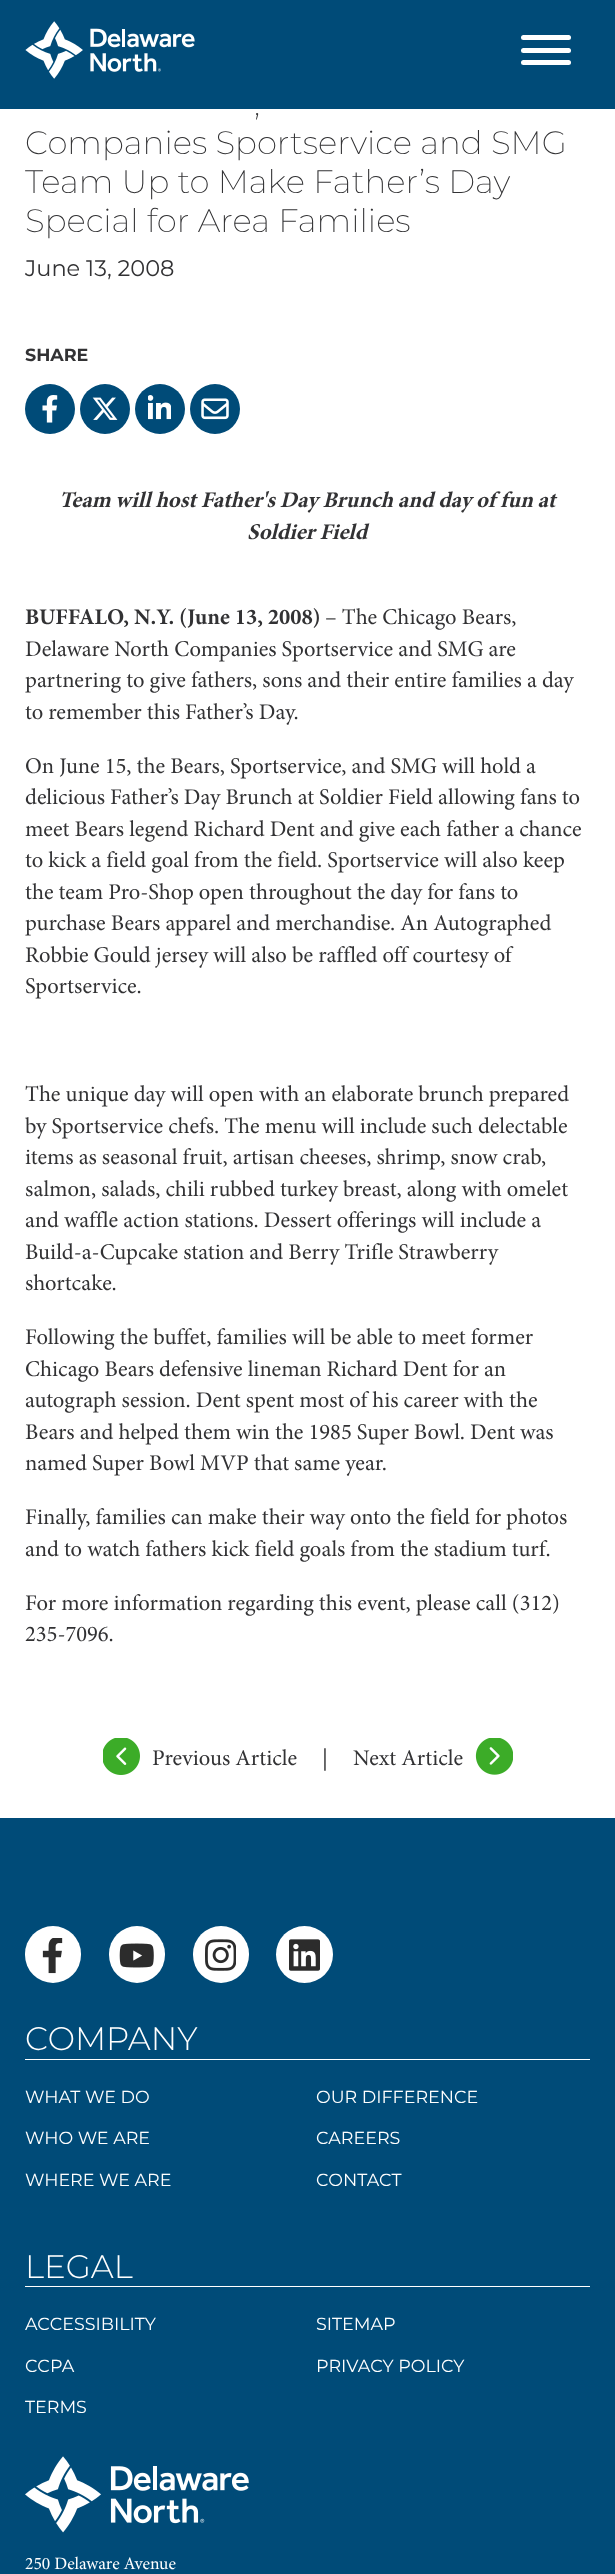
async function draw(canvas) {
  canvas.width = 615
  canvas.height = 2574
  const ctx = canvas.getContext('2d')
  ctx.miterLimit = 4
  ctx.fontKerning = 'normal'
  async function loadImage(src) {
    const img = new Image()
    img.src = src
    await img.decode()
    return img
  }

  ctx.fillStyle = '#fff'
  ctx.fillRect(0, 0, 615, 2574)
  ctx.fillStyle = '#004b78'
  ctx.fillRect(0, 0, 615, 109)
  ctx.drawImage(await loadImage('image0.png'), 25, 21, 170, 58)
  ctx.fillStyle = '#fff'
  ctx.beginPath()
  ctx.roundRect(521, 48, 50, 5, 2.5)
  ctx.fill()
  ctx.beginPath()
  ctx.roundRect(521, 35, 50, 5, 2.5)
  ctx.fill()
  ctx.beginPath()
  ctx.roundRect(521, 60, 50, 5, 2.5)
  ctx.fill()
  ctx.font = '100 32.5px Montserrat'
  ctx.fillStyle = '#323234'
  ctx.fillText(',', 254, 115)
  ctx.fillText('Companies Sportservice and SMG', 25, 154)
  ctx.fillText('Team Up to Make Father’s Day', 25, 193)
  ctx.fillText('Special for Area Families', 25, 232)
  ctx.font = '100 22.5px "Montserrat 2"'
  ctx.fillText('June 13, 2008', 25, 276)
  ctx.font = '100 17.5px "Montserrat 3"'
  ctx.fillText('SHARE', 25, 361)
  ctx.fillStyle = '#004b78'
  ctx.beginPath()
  ctx.arc(50, 409, 25, 0, 2 * Math.PI)
  ctx.fill()
  ctx.drawImage(await loadImage('image1.png'), 42, 395, 16, 28)
  ctx.beginPath()
  ctx.arc(105, 409, 25, 0, 2 * Math.PI)
  ctx.fill()
  ctx.drawImage(await loadImage('image2.png'), 92, 397, 26, 23)
  ctx.beginPath()
  ctx.arc(160, 409, 25, 0, 2 * Math.PI)
  ctx.fill()
  ctx.drawImage(await loadImage('image3.png'), 148, 395, 23, 25)
  ctx.beginPath()
  ctx.arc(215, 409, 25, 0, 2 * Math.PI)
  ctx.fill()
  ctx.drawImage(await loadImage('image4.png'), 201, 398, 28, 22)
  ctx.font = 'italic bold 22.5px Minion'
  ctx.fillStyle = '#323234'
  ctx.fillText('Team will host Father\'s Day Brunch and day of fun at', 59, 507)
  ctx.fillText('Soldier Field', 247, 539)
  ctx.font = 'bold 22.5px Minion'
  ctx.fillText('BUFFALO, N.Y. (June 13, 2008)', 25, 624)
  ctx.font = '22.5px Minion'
  ctx.fillText('– The Chicago Bears,', 325, 624)
  ctx.fillText('Delaware North Companies Sportservice and SMG are', 25, 656)
  ctx.fillText('partnering to give fathers, sons and their entire families a day', 25, 687)
  ctx.fillText('to remember this Father’s Day.', 25, 719)
  ctx.fillText('On June 15, the Bears, Sportservice, and SMG will hold a', 25, 773)
  ctx.fillText('delicious Father’s Day Brunch at Soldier Field allowing fans to', 25, 804)
  ctx.fillText('meet Bears legend Richard Dent and give each father a chance', 25, 836)
  ctx.fillText('to kick a field goal from the field. Sportservice will also keep', 25, 867)
  ctx.fillText('the team Pro-Shop open throughout the day for fans to', 25, 899)
  ctx.fillText('purchase Bears apparel and merchandise. An Autographed', 25, 930)
  ctx.fillText('Robbie Gould jersey will also be raffled off courtesy of', 25, 962)
  ctx.fillText('Sportservice.', 25, 993)
  ctx.fillText('The unique day will open with an elaborate brunch prepared', 25, 1101)
  ctx.fillText('by Sportservice chefs. The menu will include such delectable', 25, 1133)
  ctx.fillText('items as seasonal fruit, artisan cheeses, shrimp, snow crab,', 25, 1164)
  ctx.fillText('salmon, salads, chili rubbed turkey breast, along with omelet', 25, 1196)
  ctx.fillText('and waffle action stations. Dessert offerings will include a', 25, 1227)
  ctx.fillText('Build-a-Cupcake station and Berry Trifle Strawberry', 25, 1259)
  ctx.fillText('shortcake.', 25, 1290)
  ctx.fillText('Following the buffet, families will be able to meet former', 25, 1344)
  ctx.fillText('Chicago Bears defensive lineman Richard Dent for an', 25, 1376)
  ctx.fillText('autograph session. Dent spent most of his career with the', 25, 1407)
  ctx.fillText('Bears and helped them win the 1985 Super Bowl. Dent was', 25, 1439)
  ctx.fillText('named Super Bowl MVP that same year.', 25, 1470)
  ctx.fillText('Finally, families can make their way onto the field for photos', 25, 1524)
  ctx.fillText('and to watch fathers kick field goals from the stadium turf.', 25, 1556)
  ctx.fillText('For more information regarding this event, please call (312)', 25, 1610)
  ctx.fillText('235-7096.', 25, 1641)
  ctx.drawImage(await loadImage('image5.png'), 103, 1738, 37, 37)
  ctx.fillText('Previous Article', 152, 1765)
  ctx.fillText('|', 322, 1765)
  ctx.fillText('Next Article', 353, 1765)
  ctx.drawImage(await loadImage('image6.png'), 475, 1738, 38, 37)
  ctx.fillStyle = '#004b78'
  ctx.fillRect(0, 1818, 615, 756)
  ctx.fillStyle = '#fff'
  ctx.beginPath()
  ctx.roundRect(25, 1926, 56, 57, 28)
  ctx.fill()
  ctx.drawImage(await loadImage('image7.png'), 42, 1938, 21, 36)
  ctx.beginPath()
  ctx.roundRect(109, 1926, 56, 57, 28)
  ctx.fill()
  ctx.drawImage(await loadImage('image8.png'), 119, 1943, 35, 25)
  ctx.beginPath()
  ctx.roundRect(193, 1926, 56, 57, 28)
  ctx.fill()
  ctx.drawImage(await loadImage('image9.png'), 205, 1939, 31, 32)
  ctx.beginPath()
  ctx.arc(304.5, 1954.5, 28.5, 0, 2 * Math.PI)
  ctx.fill()
  ctx.drawImage(await loadImage('image10.png'), 289, 1939, 31, 32)
  ctx.fillRect(25, 2059, 565, 1)
  ctx.font = '100 32.5px "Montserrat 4"'
  ctx.fillText('COMPANY', 25, 2050)
  ctx.font = '100 17.5px "Montserrat 2"'
  ctx.fillText('WHAT WE DO', 25, 2103)
  ctx.fillText('OUR DIFFERENCE', 316, 2103)
  ctx.fillText('WHO WE ARE', 25, 2144)
  ctx.fillText('CAREERS', 316, 2144)
  ctx.fillText('WHERE WE ARE', 25, 2186)
  ctx.fillText('CONTACT', 316, 2186)
  ctx.fillRect(25, 2286, 565, 1)
  ctx.font = '100 32.5px "Montserrat 4"'
  ctx.fillText('LEGAL', 25, 2278)
  ctx.font = '100 17.5px "Montserrat 2"'
  ctx.fillText('ACCESSIBILITY', 25, 2330)
  ctx.fillText('SITEMAP', 316, 2330)
  ctx.fillText('CCPA', 25, 2372)
  ctx.fillText('PRIVACY POLICY', 316, 2372)
  ctx.fillText('TERMS', 25, 2413)
  ctx.drawImage(await loadImage('image11.png'), 25, 2456, 224, 77)
  ctx.font = '17.5px Minion'
  ctx.fillText('250 Delaware Avenue', 25, 2569)
}

draw(document.querySelector('canvas'))
